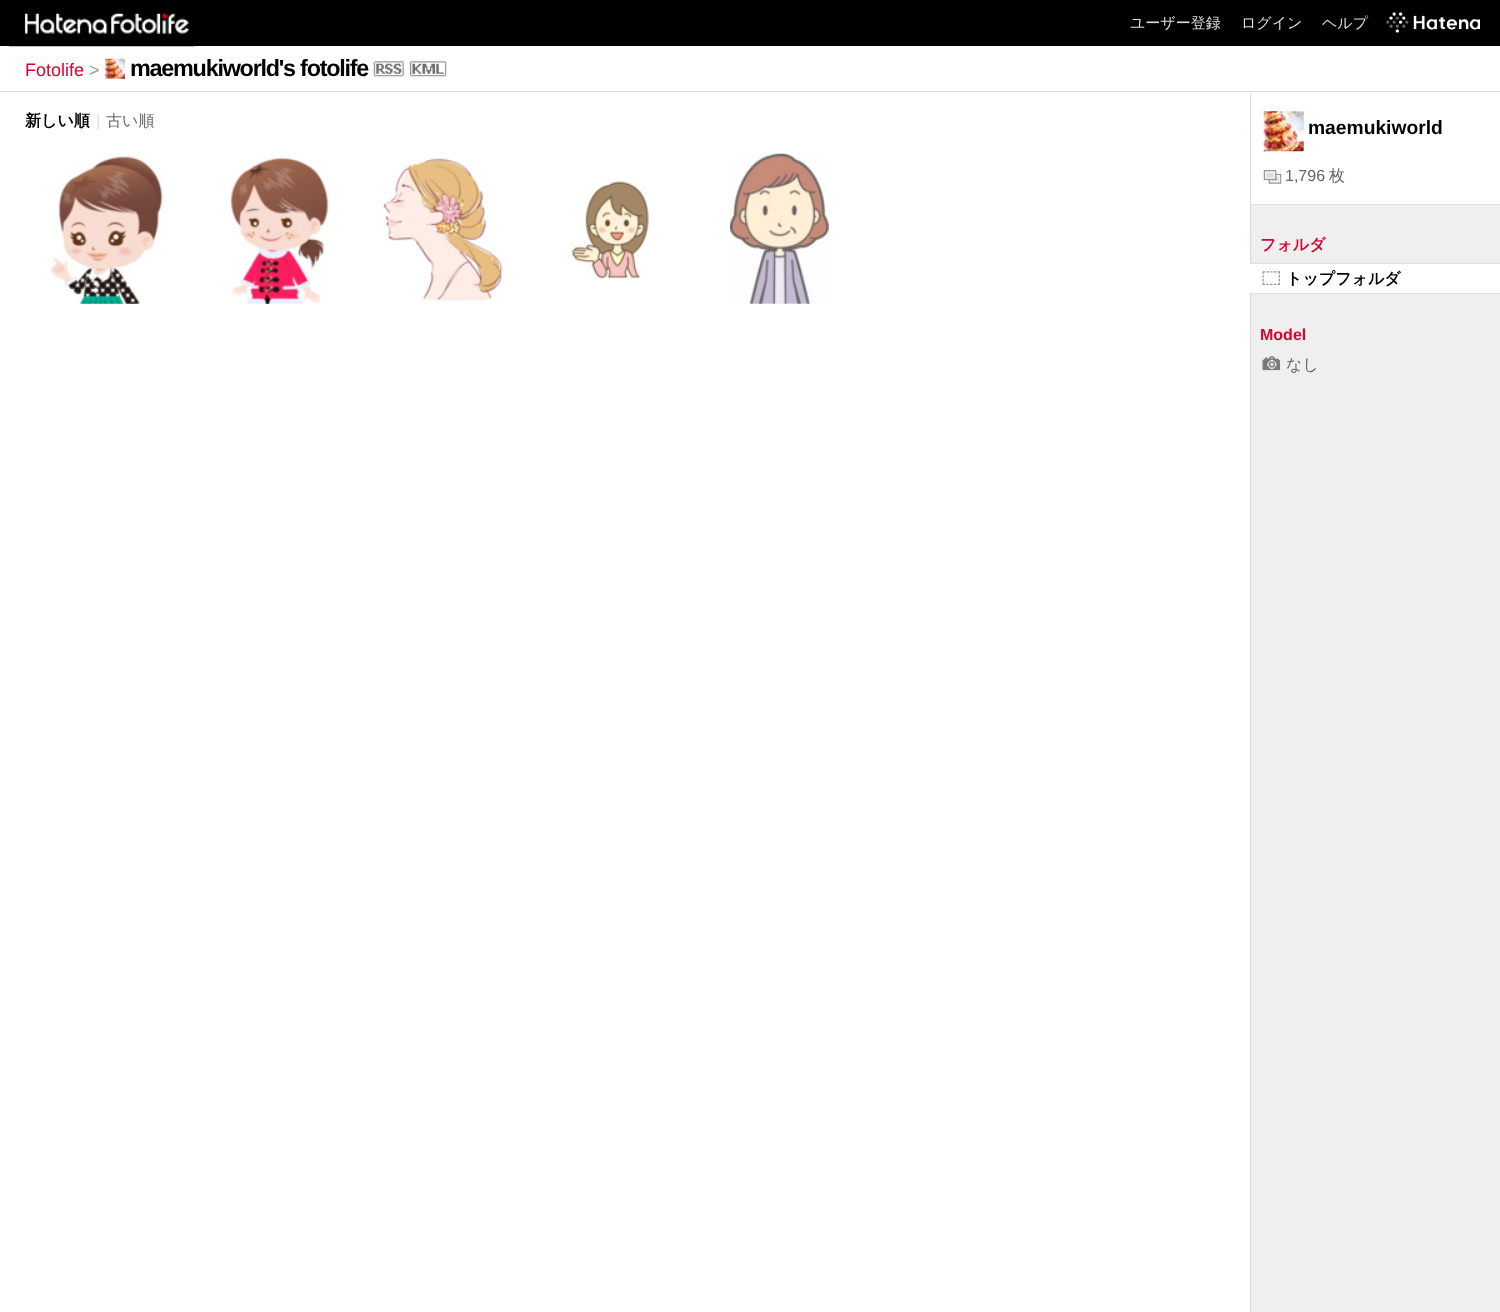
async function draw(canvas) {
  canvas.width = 1500
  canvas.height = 1312
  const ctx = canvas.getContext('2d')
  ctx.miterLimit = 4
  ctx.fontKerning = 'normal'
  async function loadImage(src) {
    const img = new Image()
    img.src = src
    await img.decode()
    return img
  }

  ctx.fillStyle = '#fff'
  ctx.fillRect(0, 0, 1500, 1312)
  ctx.drawImage(await loadImage('image0.png'), 1250, 93, 250, 1219)
  ctx.fillStyle = '#000'
  ctx.fillRect(0, 0, 1500, 46)
  ctx.drawImage(await loadImage('image1.png'), 8, 13, 104, 34)
  ctx.drawImage(await loadImage('image2.png'), 111, 13, 84, 34)
  ctx.font = '500 15px WenQuanYi Zen Hei'
  ctx.fillStyle = '#dedede'
  ctx.fillText('ユーザー登録', 1130, 28)
  ctx.fillText('ログイン', 1241, 28)
  ctx.fillText('ヘルプ', 1322, 28)
  ctx.drawImage(await loadImage('image3.png'), 1386, 12, 94, 21)
  ctx.fillRect(0, 91, 1500, 1)
  ctx.font = '18px Liberation Sans'
  ctx.fillStyle = '#de002f'
  ctx.fillText('Fotolife', 25, 76)
  ctx.fillStyle = '#999'
  ctx.fillText('>', 89, 76)
  ctx.drawImage(await loadImage('image4.png'), 105, 58, 20, 21)
  ctx.letterSpacing = '-1.25px'
  ctx.font = 'bold 23.4px Liberation Sans'
  ctx.fillStyle = '#000'
  ctx.fillText('maemukiworld\'s fotolife', 130, 76)
  ctx.drawImage(await loadImage('image5.png'), 373, 61, 31, 16)
  ctx.drawImage(await loadImage('image6.png'), 410, 61, 37, 16)
  ctx.letterSpacing = '0px'
  ctx.font = 'bold 16px WenQuanYi Zen Hei'
  ctx.fillText('新しい順', 25, 126)
  ctx.font = '16px Liberation Sans'
  ctx.fillStyle = '#dedede'
  ctx.fillText('|', 96, 126)
  ctx.font = '500 16px WenQuanYi Zen Hei'
  ctx.fillStyle = '#666'
  ctx.fillText('古い順', 106, 126)
  ctx.drawImage(await loadImage('image7.png'), 50, 156, 113, 148)
  ctx.drawImage(await loadImage('image8.png'), 230, 157, 101, 147)
  ctx.drawImage(await loadImage('image9.png'), 383, 158, 120, 143)
  ctx.drawImage(await loadImage('image10.png'), 571, 181, 78, 98)
  ctx.drawImage(await loadImage('image11.png'), 730, 153, 99, 151)
  ctx.fillStyle = '#fff'
  ctx.fillRect(1251, 93, 249, 111)
  ctx.fillStyle = '#dedede'
  ctx.fillRect(1251, 204, 249, 1)
  ctx.drawImage(await loadImage('image12.png'), 1263, 111, 41, 41)
  ctx.font = 'bold 19.25px Liberation Sans'
  ctx.fillStyle = '#000'
  ctx.fillText('maemukiworld', 1308, 134)
  ctx.drawImage(await loadImage('image13.png'), 1263, 170, 19, 14)
  ctx.font = '16px Liberation Sans'
  ctx.fillStyle = '#666'
  ctx.fillText('1,796', 1285, 181)
  ctx.font = '500 16px WenQuanYi Zen Hei'
  ctx.fillText('枚', 1329, 181)
  ctx.font = 'bold 16px WenQuanYi Zen Hei'
  ctx.fillStyle = '#de002f'
  ctx.fillText('フォルダ', 1260, 250)
  ctx.fillStyle = '#fff'
  ctx.fillRect(1250, 264, 250, 29)
  ctx.fillStyle = '#dedede'
  ctx.fillRect(1250, 263, 250, 1)
  ctx.fillRect(1250, 293, 250, 1)
  ctx.drawImage(await loadImage('image14.png'), 1262, 271, 18, 14)
  ctx.fillStyle = '#000'
  ctx.fillText('トップフォルダ', 1286, 284)
  ctx.font = 'bold 16px Liberation Sans'
  ctx.fillStyle = '#de002f'
  ctx.fillText('Model', 1260, 340)
  ctx.drawImage(await loadImage('image15.png'), 1262, 356, 18, 15)
  ctx.font = '500 16px WenQuanYi Zen Hei'
  ctx.fillStyle = '#666'
  ctx.fillText('なし', 1286, 370)
}

draw(document.querySelector('canvas'))
